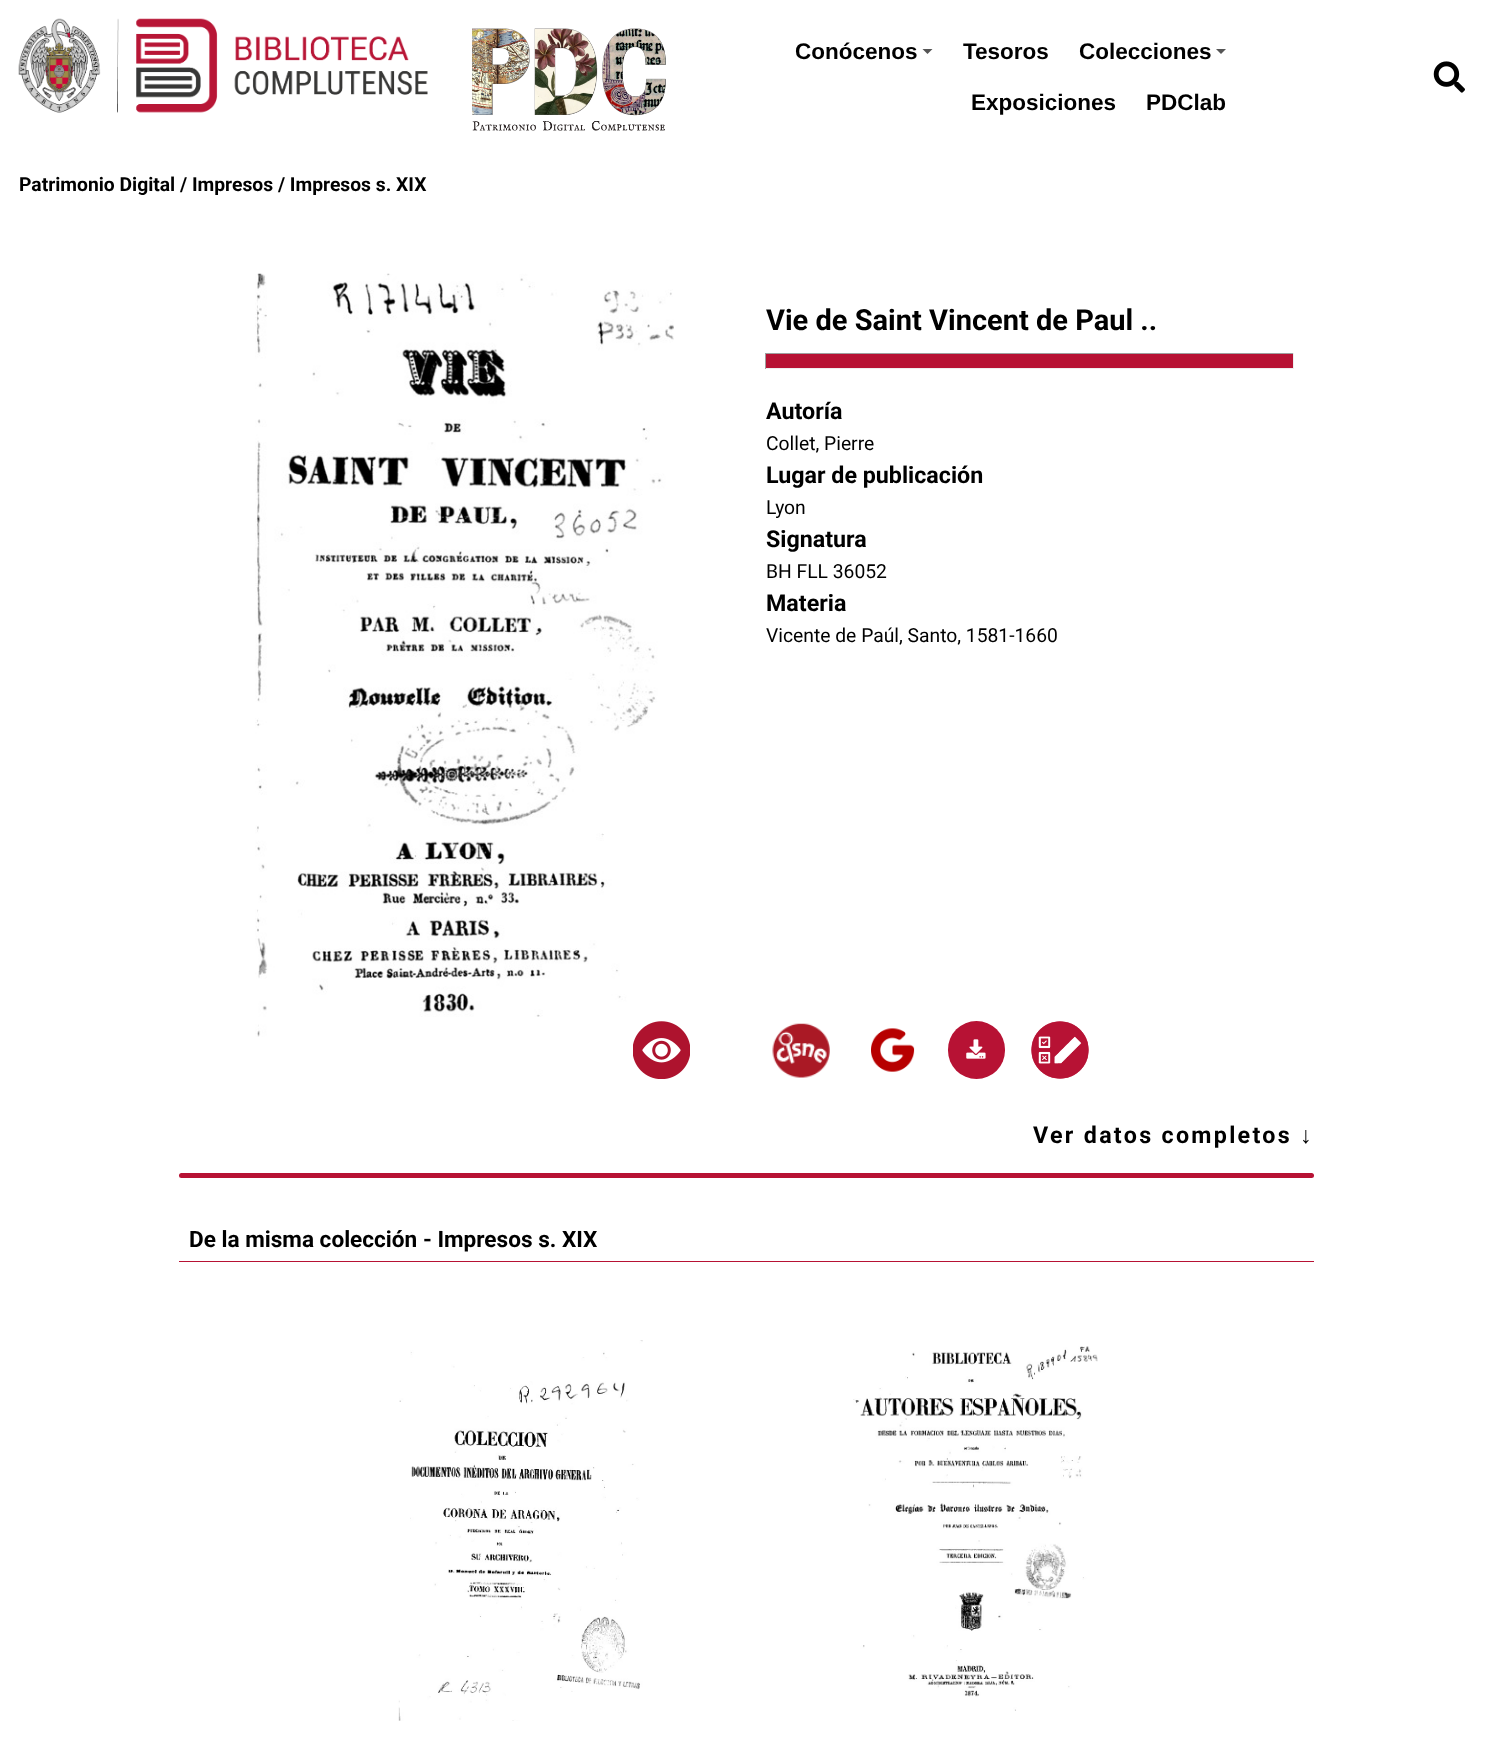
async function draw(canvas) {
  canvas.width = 1492
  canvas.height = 1741
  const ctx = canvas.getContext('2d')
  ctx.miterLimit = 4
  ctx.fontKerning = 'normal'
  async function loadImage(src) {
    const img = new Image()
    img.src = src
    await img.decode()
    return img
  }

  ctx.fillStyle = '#fff'
  ctx.fillRect(0, 0, 1492, 1741)
  ctx.drawImage(await loadImage('image0.png'), 18, 18, 410, 95)
  ctx.drawImage(await loadImage('image1.png'), 472, 28, 194, 103)
  ctx.font = 'bold 22.5px Liberation Sans'
  ctx.fillStyle = '#000'
  ctx.fillText('Conócenos', 795, 59)
  ctx.fillStyle = '#555'
  ctx.beginPath()
  ctx.moveTo(922.5, 49)
  ctx.lineTo(932.5, 49)
  ctx.lineTo(927.5, 54)
  ctx.closePath()
  ctx.fill()
  ctx.fillStyle = '#000'
  ctx.fillText('Tesoros', 963, 59)
  ctx.fillText('Colecciones', 1079, 59)
  ctx.fillStyle = '#555'
  ctx.beginPath()
  ctx.moveTo(1216, 49)
  ctx.lineTo(1226, 49)
  ctx.lineTo(1221, 54)
  ctx.closePath()
  ctx.fill()
  ctx.fillStyle = '#000'
  ctx.fillText('Exposiciones', 971, 110)
  ctx.fillText('PDClab', 1146, 110)
  ctx.drawImage(await loadImage('image2.png'), 1433, 61, 32, 32)
  ctx.font = 'bold 19.3px Roboto'
  ctx.fillText('Patrimonio Digital / Impresos / Impresos s. XIX', 19, 191)
  ctx.drawImage(await loadImage('image3.png'), 255, 273, 419, 764)
  ctx.drawImage(await loadImage('image4.png'), 633, 1021, 57, 58)
  ctx.font = 'bold 29px Roboto'
  ctx.fillText('Vie de Saint Vincent de Paul ..', 766, 330)
  ctx.fillStyle = '#b71234'
  ctx.fillRect(766, 354, 527, 14)
  ctx.fillStyle = '#9f9f9f'
  ctx.fillRect(765, 353, 529, 1)
  ctx.fillStyle = '#eee'
  ctx.fillRect(1293, 353, 1, 16)
  ctx.fillRect(765, 368, 529, 1)
  ctx.fillStyle = '#9f9f9f'
  ctx.fillRect(765, 353, 1, 16)
  ctx.font = 'bold 23.25px Roboto'
  ctx.fillStyle = '#000'
  ctx.fillText('Autoría', 766, 419)
  ctx.font = '19.3px Roboto'
  ctx.fillText('Collet, Pierre', 766, 450)
  ctx.font = 'bold 23.25px Roboto'
  ctx.fillText('Lugar de publicación', 766, 483)
  ctx.font = '19.3px Roboto'
  ctx.fillText('Lyon', 766, 514)
  ctx.font = 'bold 23.25px Roboto'
  ctx.fillText('Signatura', 766, 547)
  ctx.font = '19.3px Roboto'
  ctx.fillText('BH FLL 36052', 766, 578)
  ctx.font = 'bold 23.25px Roboto'
  ctx.fillText('Materia', 766, 611)
  ctx.font = '19.3px Roboto'
  ctx.fillText('Vicente de Paúl, Santo, 1581-1660', 766, 642)
  ctx.drawImage(await loadImage('image5.png'), 772, 1023, 58, 55)
  ctx.drawImage(await loadImage('image6.png'), 871, 1028, 44, 44)
  ctx.fillStyle = '#b71234'
  ctx.beginPath()
  ctx.roundRect(948, 1021, 57, 58, 28.5)
  ctx.fill()
  ctx.drawImage(await loadImage('image7.png'), 966, 1039, 20, 20)
  ctx.drawImage(await loadImage('image8.png'), 1031, 1021, 58, 58)
  ctx.letterSpacing = '2.3px'
  ctx.font = 'bold 23.25px Roboto'
  ctx.fillStyle = '#000'
  ctx.fillText('Ver datos completos', 1033, 1143)
  ctx.font = 'bold 23.25px Liberation Sans'
  ctx.fillText('↓', 1300, 1143)
  ctx.fillStyle = '#b71234'
  ctx.beginPath()
  ctx.roundRect(179, 1173, 1135, 5, 2.5)
  ctx.fill()
  ctx.fillRect(179, 1261, 1135, 1)
  ctx.letterSpacing = '0px'
  ctx.font = 'bold 22.6px Roboto'
  ctx.fillStyle = '#000'
  ctx.fillText('De la misma colección - Impresos s. XIX', 189, 1247)
  ctx.drawImage(await loadImage('image9.png'), 398, 1340, 245, 381)
  ctx.drawImage(await loadImage('image10.png'), 853, 1346, 245, 365)
}

draw(document.querySelector('canvas'))
